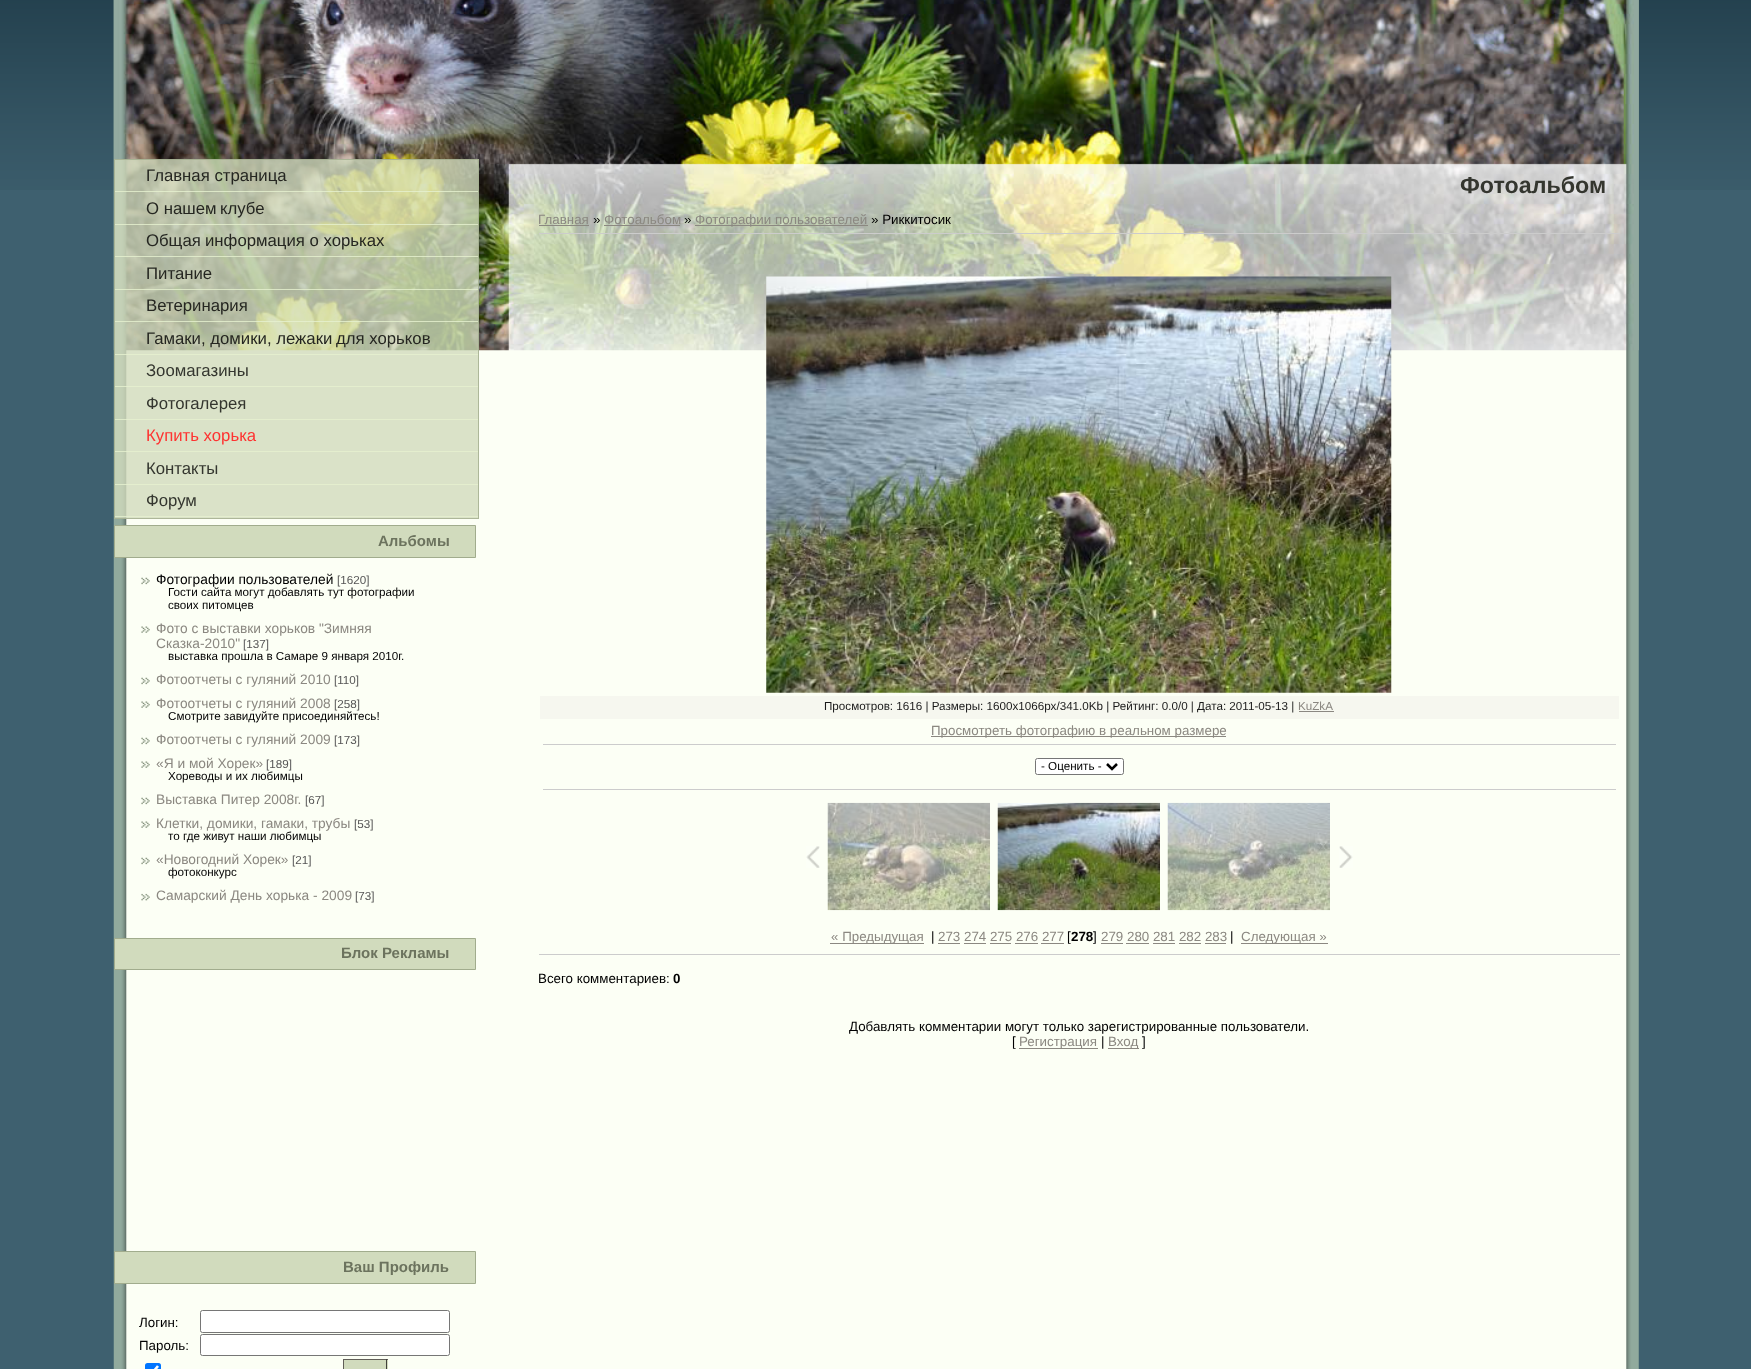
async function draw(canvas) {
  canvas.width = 1751
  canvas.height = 1369
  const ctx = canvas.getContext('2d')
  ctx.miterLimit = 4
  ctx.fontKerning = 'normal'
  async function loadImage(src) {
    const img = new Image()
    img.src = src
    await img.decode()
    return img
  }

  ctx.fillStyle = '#3e606f'
  ctx.fillRect(0, 0, 1751, 1369)
  ctx.drawImage(await loadImage('image0.png'), 0, 0, 1751, 190)
  ctx.drawImage(await loadImage('image1.png'), 113, 0, 1526, 1369)
  ctx.drawImage(await loadImage('image2.png'), 113, 0, 1526, 351)
  ctx.fillStyle = '#d1dbbdcc'
  ctx.fillRect(114, 159, 365, 360)
  ctx.strokeStyle = '#a1ac8dcc'
  ctx.strokeRect(114.5, 159.5, 364, 359)
  ctx.fillStyle = '#e6f1d0cc'
  ctx.fillRect(115, 191, 363, 1)
  ctx.font = '16.75px Liberation Sans'
  ctx.fillStyle = '#252621'
  ctx.fillText('Главная страница', 146, 181)
  ctx.fillStyle = '#e6f1d0cc'
  ctx.fillRect(115, 224, 363, 1)
  ctx.fillStyle = '#252621'
  ctx.fillText('О нашем', 146, 214)
  ctx.fillText('клубе', 220, 214)
  ctx.fillStyle = '#e6f1d0cc'
  ctx.fillRect(115, 256, 363, 1)
  ctx.fillStyle = '#252621'
  ctx.fillText('Общая', 146, 246)
  ctx.fillText('информация о хорьках', 205, 246)
  ctx.fillStyle = '#e6f1d0cc'
  ctx.fillRect(115, 289, 363, 1)
  ctx.fillStyle = '#252621'
  ctx.fillText('Питание', 146, 279)
  ctx.fillStyle = '#e6f1d0cc'
  ctx.fillRect(115, 321, 363, 1)
  ctx.fillStyle = '#252621'
  ctx.fillText('Ветеринария', 146, 311)
  ctx.fillStyle = '#e6f1d0cc'
  ctx.fillRect(115, 354, 363, 1)
  ctx.fillStyle = '#252621'
  ctx.fillText('Гамаки, домики, лежаки', 146, 344)
  ctx.fillText('для хорьков', 336, 344)
  ctx.fillStyle = '#e6f1d0cc'
  ctx.fillRect(115, 386, 363, 1)
  ctx.fillStyle = '#34362f'
  ctx.fillText('Зоомагазины', 146, 376)
  ctx.fillStyle = '#e6f1d0cc'
  ctx.fillRect(115, 419, 363, 1)
  ctx.fillStyle = '#34362f'
  ctx.fillText('Фотогалерея', 146, 409)
  ctx.fillStyle = '#e6f1d0cc'
  ctx.fillRect(115, 451, 363, 1)
  ctx.fillStyle = '#fe3331'
  ctx.fillText('Купить хорька', 146, 441)
  ctx.fillStyle = '#e6f1d0cc'
  ctx.fillRect(115, 484, 363, 1)
  ctx.fillStyle = '#34362f'
  ctx.fillText('Контакты', 146, 474)
  ctx.fillStyle = '#e6f1d0cc'
  ctx.fillRect(115, 516, 363, 1)
  ctx.fillStyle = '#34362f'
  ctx.fillText('Форум', 146, 506)
  ctx.fillStyle = '#d1dbbd'
  ctx.beginPath()
  ctx.rect(114.5, 525.5, 361, 32)
  ctx.fill()
  ctx.strokeStyle = '#a1ac8d'
  ctx.stroke()
  ctx.font = 'bold 15px Liberation Sans'
  ctx.fillStyle = '#6c735e'
  ctx.fillText('Альбомы', 378, 546)
  ctx.drawImage(await loadImage('image3.png'), 141, 577, 9, 8)
  ctx.font = '13.75px Liberation Sans'
  ctx.fillStyle = '#000'
  ctx.fillText('Фотографии пользователей', 156, 584)
  ctx.font = '11.65px Liberation Sans'
  ctx.fillStyle = '#555'
  ctx.fillText('[1620]', 337, 584)
  ctx.fillStyle = '#000'
  ctx.fillText('Гости сайта могут добавлять тут фотографии', 168, 596)
  ctx.fillText('своих питомцев', 168, 609)
  ctx.drawImage(await loadImage('image4.png'), 141, 626, 9, 7)
  ctx.font = '13.75px Liberation Sans'
  ctx.fillStyle = '#8b8881'
  ctx.fillText('Фото с выставки хорьков "Зимняя', 156, 633)
  ctx.fillText('Сказка-2010"', 156, 648)
  ctx.font = '11.65px Liberation Sans'
  ctx.fillStyle = '#555'
  ctx.fillText('[137]', 243, 648)
  ctx.fillStyle = '#000'
  ctx.fillText('выставка прошла в Самаре 9 января 2010г.', 168, 660)
  ctx.drawImage(await loadImage('image3.png'), 141, 677, 9, 8)
  ctx.font = '13.75px Liberation Sans'
  ctx.fillStyle = '#8b8881'
  ctx.fillText('Фотоотчеты с гуляний 2010', 156, 684)
  ctx.font = '11.65px Liberation Sans'
  ctx.fillStyle = '#555'
  ctx.fillText('[110]', 334, 684)
  ctx.drawImage(await loadImage('image4.png'), 141, 701, 9, 7)
  ctx.font = '13.75px Liberation Sans'
  ctx.fillStyle = '#8b8881'
  ctx.fillText('Фотоотчеты с гуляний 2008', 156, 708)
  ctx.font = '11.65px Liberation Sans'
  ctx.fillStyle = '#555'
  ctx.fillText('[258]', 334, 708)
  ctx.fillStyle = '#000'
  ctx.fillText('Смотрите завидуйте присоединяйтесь!', 168, 720)
  ctx.drawImage(await loadImage('image3.png'), 141, 737, 9, 8)
  ctx.font = '13.75px Liberation Sans'
  ctx.fillStyle = '#8b8881'
  ctx.fillText('Фотоотчеты с гуляний 2009', 156, 744)
  ctx.font = '11.65px Liberation Sans'
  ctx.fillStyle = '#555'
  ctx.fillText('[173]', 334, 744)
  ctx.drawImage(await loadImage('image4.png'), 141, 761, 9, 7)
  ctx.font = '13.75px Liberation Sans'
  ctx.fillStyle = '#8b8881'
  ctx.fillText('«Я и мой Хорек»', 156, 768)
  ctx.font = '11.65px Liberation Sans'
  ctx.fillStyle = '#555'
  ctx.fillText('[189]', 266, 768)
  ctx.fillStyle = '#000'
  ctx.fillText('Хореводы и их любимцы', 168, 780)
  ctx.drawImage(await loadImage('image3.png'), 141, 797, 9, 8)
  ctx.font = '13.75px Liberation Sans'
  ctx.fillStyle = '#8b8881'
  ctx.fillText('Выставка Питер 2008г.', 156, 804)
  ctx.font = '11.65px Liberation Sans'
  ctx.fillStyle = '#555'
  ctx.fillText('[67]', 305, 804)
  ctx.drawImage(await loadImage('image4.png'), 141, 821, 9, 7)
  ctx.font = '13.75px Liberation Sans'
  ctx.fillStyle = '#8b8881'
  ctx.fillText('Клетки, домики, гамаки, трубы', 156, 828)
  ctx.font = '11.65px Liberation Sans'
  ctx.fillStyle = '#555'
  ctx.fillText('[53]', 354, 828)
  ctx.fillStyle = '#000'
  ctx.fillText('то где живут наши любимцы', 168, 840)
  ctx.drawImage(await loadImage('image3.png'), 141, 857, 9, 8)
  ctx.font = '13.75px Liberation Sans'
  ctx.fillStyle = '#8b8881'
  ctx.fillText('«Новогодний Хорек»', 156, 864)
  ctx.font = '11.65px Liberation Sans'
  ctx.fillStyle = '#555'
  ctx.fillText('[21]', 292, 864)
  ctx.fillStyle = '#000'
  ctx.fillText('фотоконкурс', 168, 876)
  ctx.drawImage(await loadImage('image5.png'), 141, 893, 9, 8)
  ctx.font = '13.75px Liberation Sans'
  ctx.fillStyle = '#8b8881'
  ctx.fillText('Самарский День хорька - 2009', 156, 900)
  ctx.font = '11.65px Liberation Sans'
  ctx.fillStyle = '#555'
  ctx.fillText('[73]', 355, 900)
  ctx.fillStyle = '#d1dbbd'
  ctx.beginPath()
  ctx.rect(114.5, 938.5, 361, 31)
  ctx.fill()
  ctx.stroke()
  ctx.font = 'bold 15px Liberation Sans'
  ctx.fillStyle = '#6c735e'
  ctx.fillText('Блок Рекламы', 341, 958)
  ctx.fillStyle = '#d1dbbd'
  ctx.beginPath()
  ctx.rect(114.5, 1251.5, 361, 32)
  ctx.fill()
  ctx.stroke()
  ctx.fillStyle = '#6c735e'
  ctx.fillText('Ваш Профиль', 343, 1272)
  ctx.font = '13.35px Liberation Sans'
  ctx.fillStyle = '#000'
  ctx.fillText('Логин:', 139, 1327)
  ctx.fillStyle = '#fff'
  ctx.beginPath()
  ctx.roundRect(200.5, 1310.5, 249, 22, 2)
  ctx.fill()
  ctx.strokeStyle = '#767676'
  ctx.stroke()
  ctx.fillStyle = '#000'
  ctx.fillText('Пароль:', 139, 1350)
  ctx.fillStyle = '#fff'
  ctx.beginPath()
  ctx.roundRect(200.5, 1334.5, 249, 21, 2)
  ctx.fill()
  ctx.stroke()
  ctx.fillStyle = '#0075ff'
  ctx.beginPath()
  ctx.roundRect(145, 1363, 16, 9, 2.5)
  ctx.fill()
  ctx.beginPath()
  ctx.moveTo(148, 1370.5)
  ctx.lineTo(151.5, 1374)
  ctx.lineTo(158, 1366)
  ctx.strokeStyle = '#fff'
  ctx.lineWidth = 2.6
  ctx.stroke()
  ctx.fillStyle = '#d1dbbd'
  ctx.fillRect(344, 1360, 44, 9)
  ctx.fillStyle = '#615e58'
  ctx.fillRect(343, 1359, 45, 1)
  ctx.fillStyle = '#413f3b'
  ctx.fillRect(386, 1359, 1, 10)
  ctx.fillStyle = '#615e58'
  ctx.fillRect(343, 1359, 1, 10)
  ctx.font = 'bold 23.25px Liberation Sans'
  ctx.fillStyle = '#34362f'
  ctx.fillText('Фотоальбом', 1460, 193)
  ctx.font = '13.35px Liberation Sans'
  ctx.fillStyle = '#8b8881'
  ctx.fillText('Главная', 538, 224)
  ctx.fillRect(539, 225, 50, 1)
  ctx.fillStyle = '#000'
  ctx.fillText('»', 593, 224)
  ctx.fillStyle = '#8b8881'
  ctx.fillText('Фотоальбом', 604, 224)
  ctx.fillRect(604, 225, 76, 1)
  ctx.fillStyle = '#000'
  ctx.fillText('»', 684, 224)
  ctx.fillStyle = '#8b8881'
  ctx.fillRect(695, 225, 173, 1)
  ctx.fillText('Фотографии пользователей', 695, 224)
  ctx.fillStyle = '#000'
  ctx.fillText('» Риккитосик', 871, 224)
  ctx.fillStyle = '#ccc'
  ctx.fillRect(539, 233, 1081, 1)
  ctx.drawImage(await loadImage('image6.png'), 766, 276, 626, 417)
  ctx.fillStyle = '#f6f7ef'
  ctx.fillRect(540, 696, 1079, 23)
  ctx.font = '11.65px Liberation Sans'
  ctx.fillStyle = '#1a1a1a'
  ctx.fillText('Просмотров: 1616 | Размеры: 1600x1066px/341.0Kb | Рейтинг: 0.0/0 | Дата: 2011-05-13 |', 824, 710)
  ctx.fillStyle = '#8b8881'
  ctx.fillText('KuZkA', 1298, 710)
  ctx.fillRect(1299, 711, 35, 1)
  ctx.fillRect(931, 736, 295, 1)
  ctx.font = '13.35px Liberation Sans'
  ctx.fillText('Просмотреть фотографию в реальном размере', 931, 735)
  ctx.fillStyle = '#ccc'
  ctx.fillRect(543, 744, 1073, 1)
  ctx.fillStyle = '#fff'
  ctx.beginPath()
  ctx.roundRect(1035.5, 758.5, 88, 16, 2)
  ctx.fill()
  ctx.strokeStyle = '#767676'
  ctx.lineWidth = 1
  ctx.stroke()
  ctx.beginPath()
  ctx.moveTo(1107, 764)
  ctx.lineTo(1112, 769)
  ctx.lineTo(1117, 764)
  ctx.strokeStyle = '#000'
  ctx.lineWidth = 2.5
  ctx.stroke()
  ctx.font = '11.65px Liberation Sans'
  ctx.fillStyle = '#000'
  ctx.fillText('- Оценить -', 1041, 770)
  ctx.fillStyle = '#ccc'
  ctx.fillRect(543, 789, 1073, 1)
  ctx.drawImage(await loadImage('image7.png'), 806, 846, 14, 22)
  ctx.drawImage(await loadImage('image8.png'), 827, 802, 163, 109)
  ctx.drawImage(await loadImage('image9.png'), 997, 802, 163, 109)
  ctx.drawImage(await loadImage('image10.png'), 1167, 802, 163, 109)
  ctx.drawImage(await loadImage('image11.png'), 1339, 846, 14, 22)
  ctx.fillStyle = '#8b8881'
  ctx.fillRect(830, 943, 94, 1)
  ctx.font = '13.35px Liberation Sans'
  ctx.fillText('« Предыдущая', 831, 941)
  ctx.fillStyle = '#000'
  ctx.fillText('|', 931, 941)
  ctx.fillStyle = '#8b8881'
  ctx.fillText('273 274 275 276 277', 938, 941)
  ctx.fillRect(938, 943, 22, 1)
  ctx.fillStyle = '#000'
  ctx.fillText('[', 1067, 941)
  ctx.font = 'bold 13.35px Liberation Sans'
  ctx.fillText('278', 1071, 941)
  ctx.font = '13.35px Liberation Sans'
  ctx.fillText(']', 1093, 941)
  ctx.fillStyle = '#8b8881'
  ctx.fillText('279 280 281 282 283', 1101, 941)
  ctx.fillRect(1101, 943, 22, 1)
  ctx.fillStyle = '#000'
  ctx.fillText('|', 1230, 941)
  ctx.fillStyle = '#8b8881'
  ctx.fillRect(1241, 943, 87, 1)
  ctx.fillText('Следующая »', 1241, 941)
  ctx.fillRect(964, 943, 22, 1)
  ctx.fillRect(990, 943, 21, 1)
  ctx.fillRect(1015, 943, 23, 1)
  ctx.fillRect(1041, 943, 23, 1)
  ctx.fillRect(1126, 943, 23, 1)
  ctx.fillRect(1153, 943, 22, 1)
  ctx.fillRect(1179, 943, 22, 1)
  ctx.fillRect(1205, 943, 21, 1)
  ctx.fillStyle = '#ccc'
  ctx.fillRect(539, 954, 1081, 1)
  ctx.fillStyle = '#000'
  ctx.fillText('Всего комментариев:', 538, 983)
  ctx.font = 'bold 13.35px Liberation Sans'
  ctx.fillText('0', 673, 983)
  ctx.font = '13.35px Liberation Sans'
  ctx.fillText('Добавлять комментарии могут только зарегистрированные пользователи.', 849, 1031)
  ctx.fillText('[', 1012, 1046)
  ctx.fillStyle = '#8b8881'
  ctx.fillRect(1019, 1048, 79, 1)
  ctx.fillText('Регистрация', 1019, 1046)
  ctx.fillStyle = '#000'
  ctx.fillText('|', 1101, 1046)
  ctx.fillStyle = '#8b8881'
  ctx.fillRect(1108, 1048, 31, 1)
  ctx.fillText('Вход', 1108, 1046)
  ctx.fillStyle = '#000'
  ctx.fillText(']', 1142, 1046)
}

draw(document.querySelector('canvas'))
